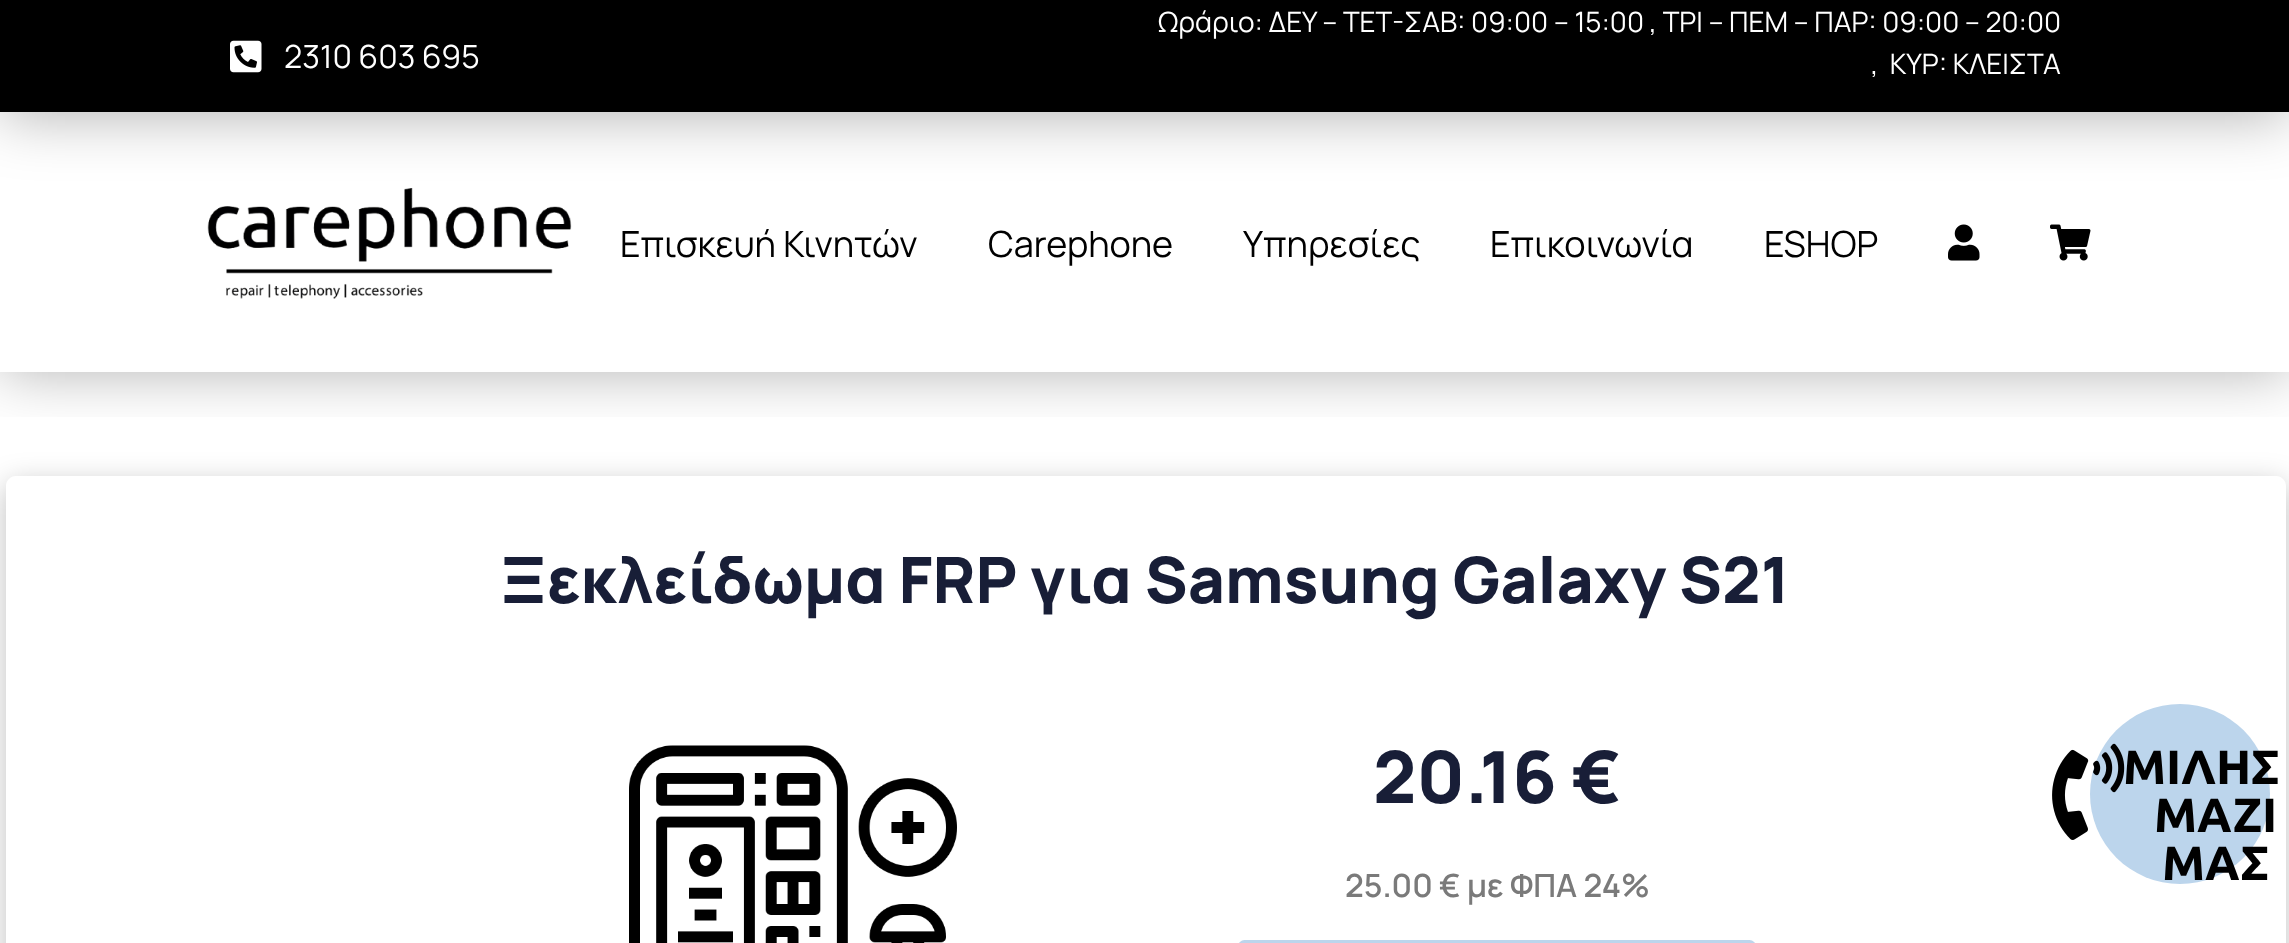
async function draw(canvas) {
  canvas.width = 2289
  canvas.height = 943
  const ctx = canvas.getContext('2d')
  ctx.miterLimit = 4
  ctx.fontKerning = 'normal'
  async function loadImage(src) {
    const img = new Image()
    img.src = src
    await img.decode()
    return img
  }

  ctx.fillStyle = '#fff'
  ctx.fillRect(0, 0, 2289, 943)
  ctx.save()
  ctx.beginPath()
  ctx.rect(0, 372, 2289, 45)
  ctx.clip()
  ctx.fillStyle = '#0000004d'
  ctx.filter = 'blur(30px)'
  ctx.beginPath()
  ctx.rect(0, 112, 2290, 260)
  ctx.fill()
  ctx.filter = 'none'
  ctx.restore()
  ctx.drawImage(await loadImage('image1.png'), 207, 188, 365, 111)
  ctx.fillStyle = '#0000004d'
  ctx.filter = 'blur(30px)'
  ctx.beginPath()
  ctx.rect(0, 4, 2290, 112)
  ctx.fill()
  ctx.filter = 'none'
  ctx.fillStyle = '#000'
  ctx.fillRect(0, 0, 2289, 112)
  ctx.drawImage(await loadImage('image0.png'), 230, 40, 32, 33)
  ctx.font = '32px Manrope'
  ctx.fillStyle = '#fff'
  ctx.fillText('2310 603 695', 284, 68)
  ctx.font = '28px Manrope'
  ctx.fillText('Ωράριο: ΔΕΥ – ΤΕΤ-ΣΑΒ: 09:00 – 15:00 , ΤΡΙ – ΠΕΜ – ΠΑΡ: 09:00 – 20:00', 1158, 32)
  ctx.fillText(',  ΚΥΡ: ΚΛΕΙΣΤΑ', 1871, 74)
  ctx.font = '36px Manrope'
  ctx.fillStyle = '#000'
  ctx.fillText('Επισκευή Κινητών', 620, 257)
  ctx.fillText('Carephone', 988, 257)
  ctx.fillText('Υπηρεσίες', 1243, 257)
  ctx.fillText('Επικοινωνία', 1490, 257)
  ctx.fillText('ESHOP', 1764, 257)
  ctx.drawImage(await loadImage('image2.png'), 1948, 224, 32, 37)
  ctx.drawImage(await loadImage('image3.png'), 2050, 224, 41, 37)
  ctx.save()
  ctx.beginPath()
  ctx.moveTo(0, 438)
  ctx.lineTo(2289, 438)
  ctx.lineTo(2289, 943)
  ctx.lineTo(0, 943)
  ctx.closePath()
  ctx.moveTo(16, 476)
  ctx.lineTo(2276, 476)
  ctx.bezierCurveTo(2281.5, 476, 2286, 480.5, 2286, 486)
  ctx.lineTo(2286, 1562)
  ctx.bezierCurveTo(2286, 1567.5, 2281.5, 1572, 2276, 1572)
  ctx.lineTo(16, 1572)
  ctx.bezierCurveTo(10.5, 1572, 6, 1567.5, 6, 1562)
  ctx.lineTo(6, 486)
  ctx.bezierCurveTo(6, 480.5, 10.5, 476, 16, 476)
  ctx.closePath()
  ctx.clip('evenodd')
  ctx.fillStyle = '#00000040'
  ctx.filter = 'blur(15px)'
  ctx.beginPath()
  ctx.roundRect(6, 484, 2280, 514, 10)
  ctx.fill()
  ctx.filter = 'none'
  ctx.restore()
  ctx.font = '800 64px Manrope'
  ctx.fillStyle = '#181e37'
  ctx.fillText('Ξεκλείδωμα FRP για Samsung Galaxy S21', 500, 603)
  ctx.drawImage(await loadImage('image4.png'), 629, 745, 328, 198)
  ctx.font = '800 72px Manrope'
  ctx.fillText('20.16 €', 1373, 803)
  ctx.font = '600 32px Manrope'
  ctx.fillStyle = '#7a7a7a'
  ctx.fillText('25.00 € με ΦΠΑ 24%', 1345, 897)
  ctx.fillStyle = '#bcd5ec'
  ctx.beginPath()
  ctx.roundRect(1238, 940, 518, 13, 10)
  ctx.fill()
  ctx.beginPath()
  ctx.arc(2180, 794, 90, 0, 2 * Math.PI)
  ctx.fill()
  ctx.drawImage(await loadImage('image5.png'), 2052, 743, 73, 97)
  ctx.font = '800 48px Ubuntu'
  ctx.fillStyle = '#000'
  ctx.fillText('ΜΙΛΗΣ', 2123, 784)
  ctx.fillText('ΜΑΖΙ', 2154, 832)
  ctx.fillText('ΜΑΣ', 2162, 880)
}

draw(document.querySelector('canvas'))
